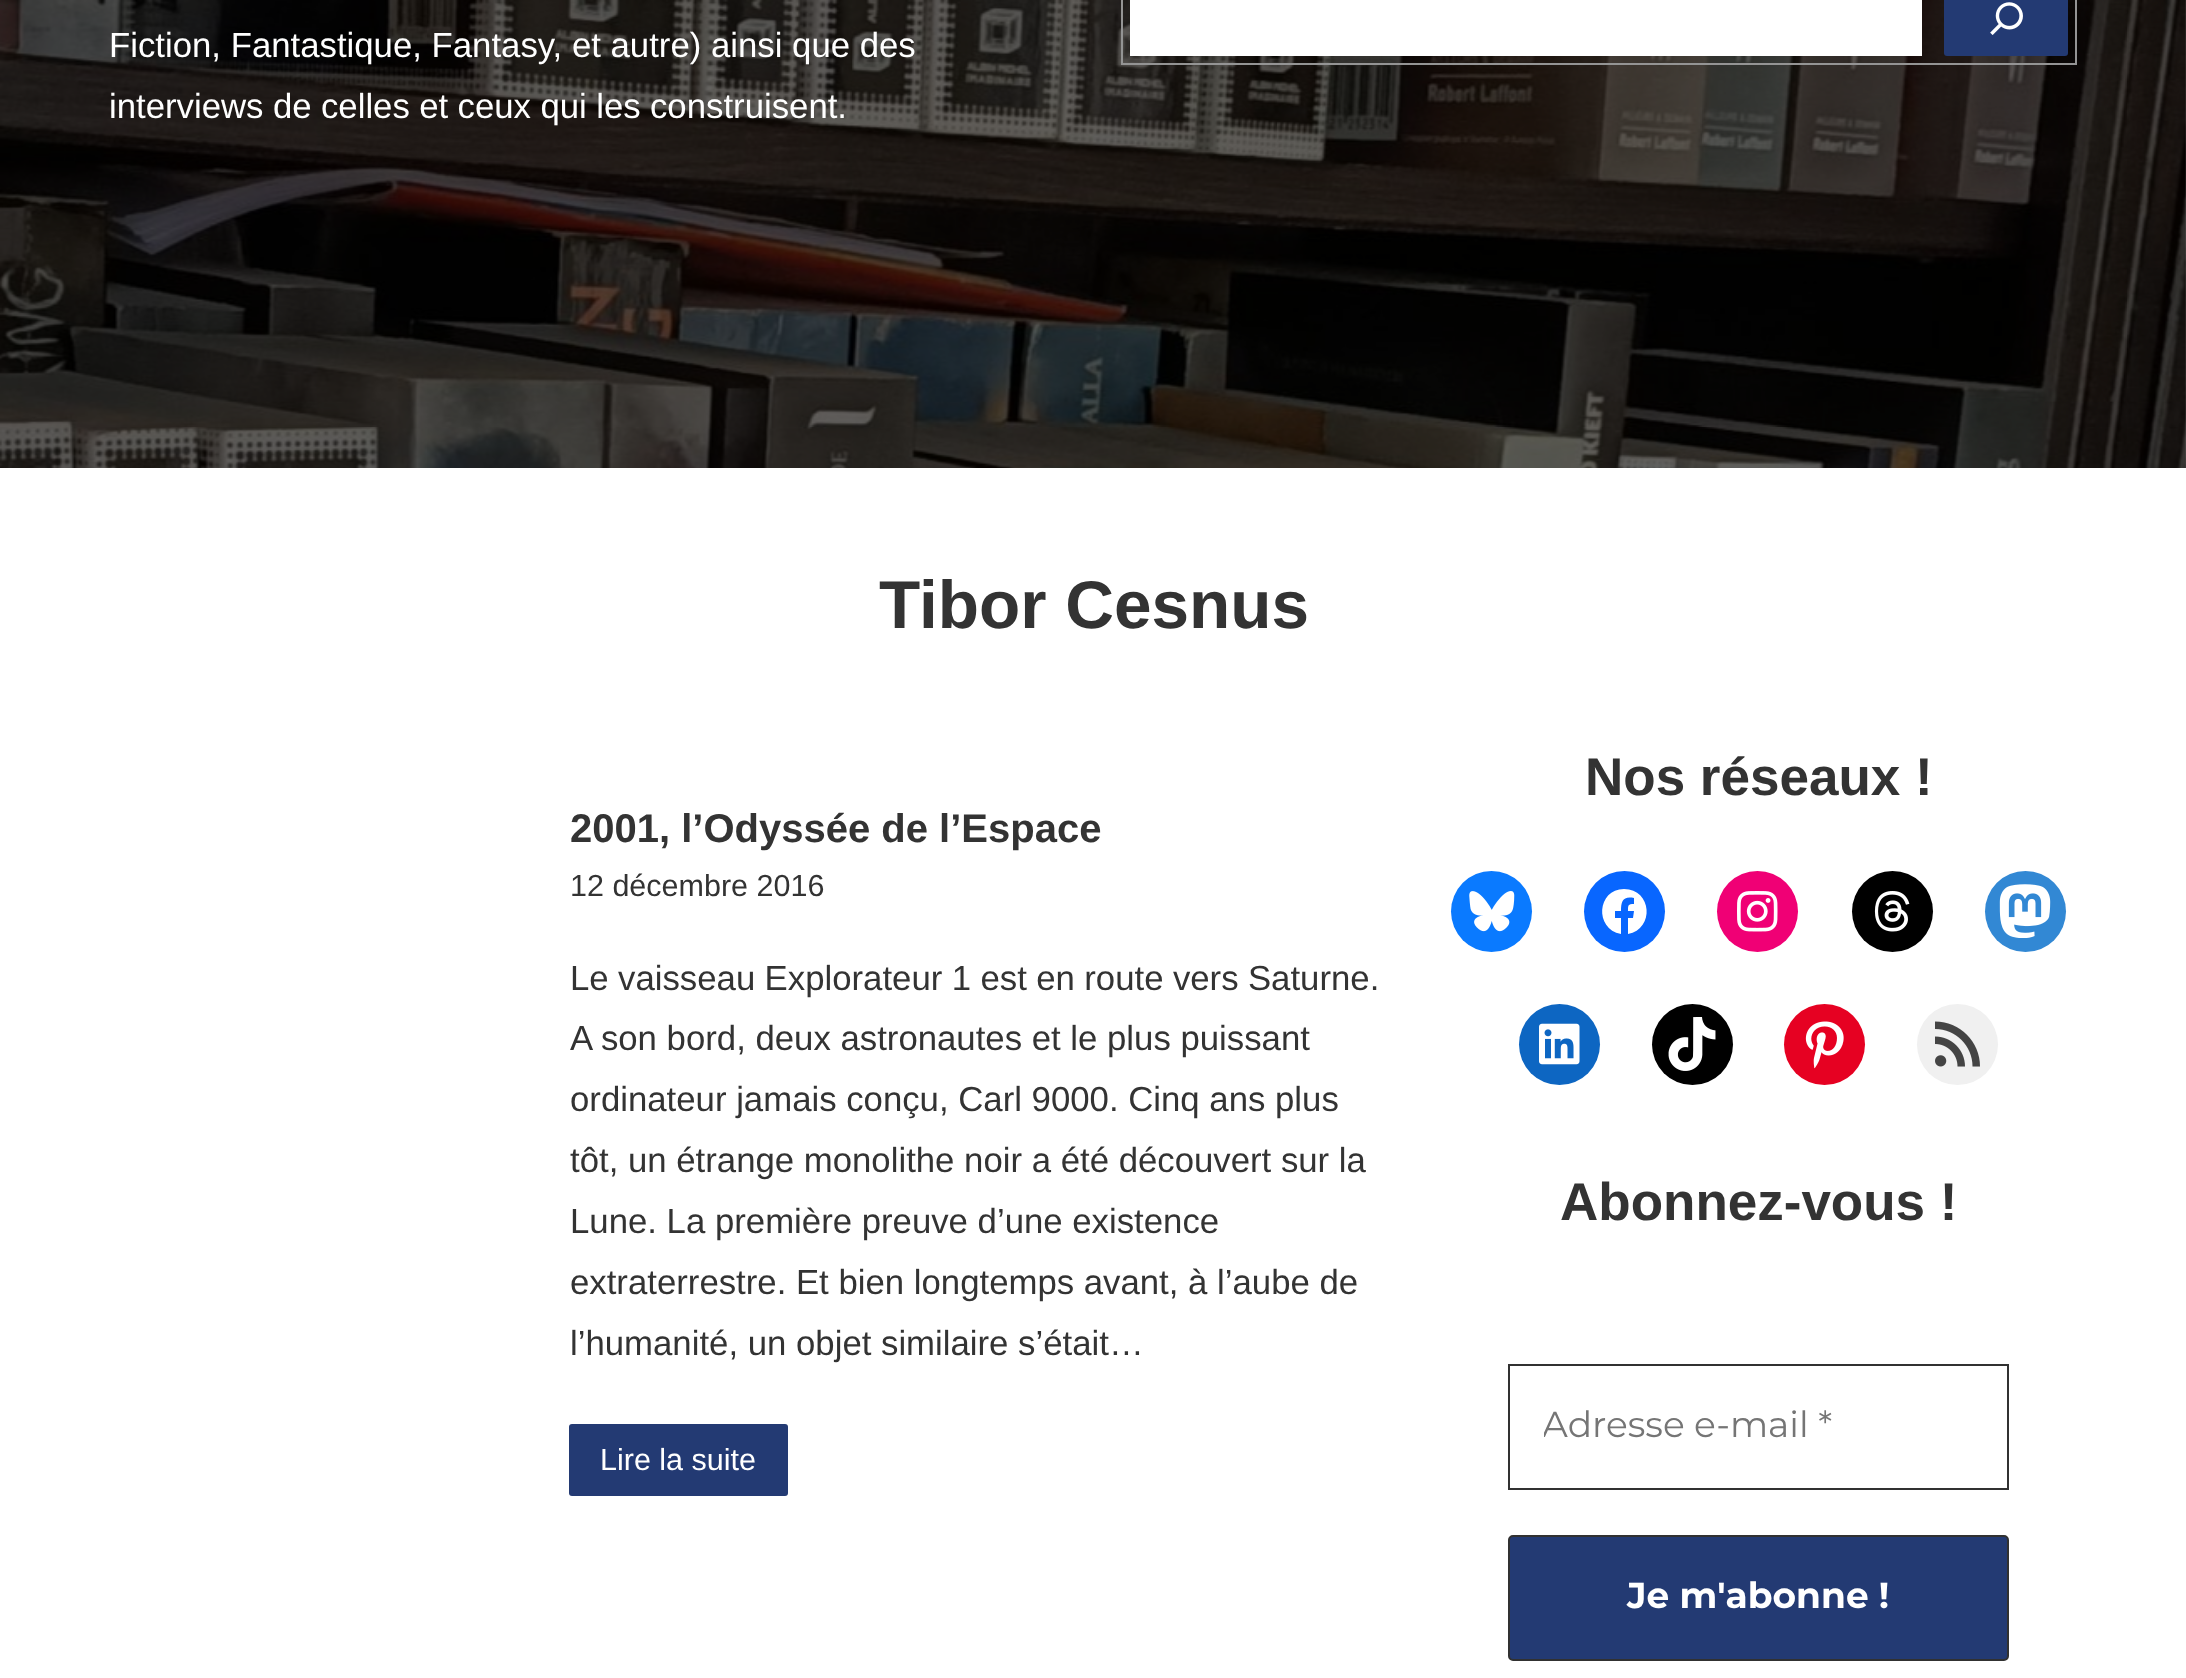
async function draw(canvas) {
  canvas.width = 2186
  canvas.height = 1678
  const ctx = canvas.getContext('2d')
  ctx.miterLimit = 4
  ctx.fontKerning = 'normal'
  async function loadImage(src) {
    const img = new Image()
    img.src = src
    await img.decode()
    return img
  }

  ctx.fillStyle = '#fff'
  ctx.fillRect(0, 0, 2186, 1678)
  ctx.drawImage(await loadImage('image0.png'), 0, 0, 2186, 468)
  ctx.font = '34.75px Liberation Sans'
  ctx.fillText('Fiction, Fantastique, Fantasy, et autre) ainsi que des', 109, 57)
  ctx.wordSpacing = '-0.25px'
  ctx.fillText('interviews de celles et ceux qui les construisent.', 109, 118)
  ctx.strokeStyle = '#949494'
  ctx.lineWidth = 2
  ctx.strokeRect(1122, -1, 954, 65)
  ctx.fillRect(1130, 0, 792, 56)
  ctx.fillStyle = '#233a73'
  ctx.beginPath()
  ctx.roundRect(1944, -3, 124, 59, 3)
  ctx.fill()
  ctx.drawImage(await loadImage('image1.png'), 1990, 2, 33, 33)
  ctx.wordSpacing = '0px'
  ctx.font = 'bold 67.5px Liberation Sans'
  ctx.fillStyle = '#333'
  ctx.fillText('Tibor Cesnus', 879, 628)
  ctx.font = 'bold 40px Liberation Sans'
  ctx.fillText('2001, l’Odyssée de l’Espace', 570, 842)
  ctx.font = '30.5px Liberation Sans'
  ctx.fillText('12 décembre 2016', 570, 896)
  ctx.wordSpacing = '-0.25px'
  ctx.font = '34.75px Liberation Sans'
  ctx.fillText('Le vaisseau Explorateur 1 est en route vers Saturne.', 570, 990)
  ctx.wordSpacing = '0px'
  ctx.fillText('A son bord, deux astronautes et le plus puissant', 570, 1050)
  ctx.fillText('ordinateur jamais conçu, Carl 9000. Cinq ans plus', 570, 1111)
  ctx.fillText('tôt, un étrange monolithe noir a été découvert sur la', 570, 1172)
  ctx.fillText('Lune. La première preuve d’une existence', 570, 1233)
  ctx.fillText('extraterrestre. Et bien longtemps avant, à l’aube de', 570, 1294)
  ctx.fillText('l’humanité, un objet similaire s’était…', 570, 1355)
  ctx.fillStyle = '#233a73'
  ctx.beginPath()
  ctx.roundRect(569, 1424, 219, 72, 3)
  ctx.fill()
  ctx.font = '30.5px Liberation Sans'
  ctx.fillStyle = '#fff'
  ctx.fillText('Lire la suite', 600, 1470)
  ctx.font = 'bold 53px Liberation Sans'
  ctx.fillStyle = '#333'
  ctx.fillText('Nos réseaux !', 1585, 795)
  ctx.fillStyle = '#0a7aff'
  ctx.beginPath()
  ctx.arc(1491.5, 911.5, 40.5, 0, 2 * Math.PI)
  ctx.fill()
  ctx.drawImage(await loadImage('image2.png'), 1469, 891, 46, 41)
  ctx.fillStyle = '#0866ff'
  ctx.beginPath()
  ctx.arc(1624.5, 911.5, 40.5, 0, 2 * Math.PI)
  ctx.fill()
  ctx.fillStyle = '#fff'
  ctx.beginPath()
  ctx.moveTo(1624, 889)
  ctx.bezierCurveTo(1597, 889, 1594, 929, 1621, 934)
  ctx.lineTo(1621, 918)
  ctx.lineTo(1615, 918)
  ctx.lineTo(1615, 911)
  ctx.lineTo(1621, 911)
  ctx.bezierCurveTo(1621, 901, 1623, 896, 1634, 898)
  ctx.lineTo(1634, 904)
  ctx.bezierCurveTo(1628, 904, 1628, 905, 1628, 911)
  ctx.lineTo(1634, 911)
  ctx.lineTo(1633, 918)
  ctx.lineTo(1628, 918)
  ctx.lineTo(1628, 934)
  ctx.bezierCurveTo(1655, 929, 1652, 889, 1624, 889)
  ctx.closePath()
  ctx.fill()
  ctx.fillStyle = '#f00075'
  ctx.beginPath()
  ctx.arc(1757.5, 911.5, 40.5, 0, 2 * Math.PI)
  ctx.fill()
  ctx.drawImage(await loadImage('image3.png'), 1737, 891, 41, 41)
  ctx.fillStyle = '#000'
  ctx.beginPath()
  ctx.arc(1892.5, 911.5, 40.5, 0, 2 * Math.PI)
  ctx.fill()
  ctx.drawImage(await loadImage('image4.png'), 1874, 891, 36, 41)
  ctx.fillStyle = '#3288d4'
  ctx.beginPath()
  ctx.arc(2025.5, 911.5, 40.5, 0, 2 * Math.PI)
  ctx.fill()
  ctx.drawImage(await loadImage('image5.png'), 1999, 884, 52, 54)
  ctx.fillStyle = '#0d66c2'
  ctx.beginPath()
  ctx.arc(1559.5, 1044.5, 40.5, 0, 2 * Math.PI)
  ctx.fill()
  ctx.drawImage(await loadImage('image6.png'), 1539, 1023, 41, 42)
  ctx.fillStyle = '#000'
  ctx.beginPath()
  ctx.arc(1692.5, 1044.5, 40.5, 0, 2 * Math.PI)
  ctx.fill()
  ctx.drawImage(await loadImage('image7.png'), 1668, 1017, 48, 54)
  ctx.fillStyle = '#e60122'
  ctx.beginPath()
  ctx.arc(1824.5, 1044.5, 40.5, 0, 2 * Math.PI)
  ctx.fill()
  ctx.drawImage(await loadImage('image8.png'), 1805, 1021, 39, 48)
  ctx.fillStyle = '#f0f0f0'
  ctx.beginPath()
  ctx.arc(1957.5, 1044.5, 40.5, 0, 2 * Math.PI)
  ctx.fill()
  ctx.drawImage(await loadImage('image9.png'), 1935, 1021, 45, 46)
  ctx.fillStyle = '#333'
  ctx.fillText('Abonnez-vous !', 1560, 1220)
  ctx.strokeStyle = '#313131'
  ctx.strokeRect(1509, 1365, 499, 124)
  ctx.save()
  ctx.beginPath()
  ctx.rect(1544, 1404, 429, 43)
  ctx.clip()
  ctx.font = '36px Montserrat'
  ctx.fillStyle = '#757575'
  ctx.fillText('Adresse e-mail *', 1542, 1437)
  ctx.restore()
  ctx.fillStyle = '#233a73'
  ctx.beginPath()
  ctx.roundRect(1509, 1536, 499, 124, 4)
  ctx.fill()
  ctx.stroke()
  ctx.font = 'bold 36px Montserrat'
  ctx.fillStyle = '#fff'
  ctx.fillText('Je m\'abonne !', 1627, 1608)
}

draw(document.querySelector('canvas'))
